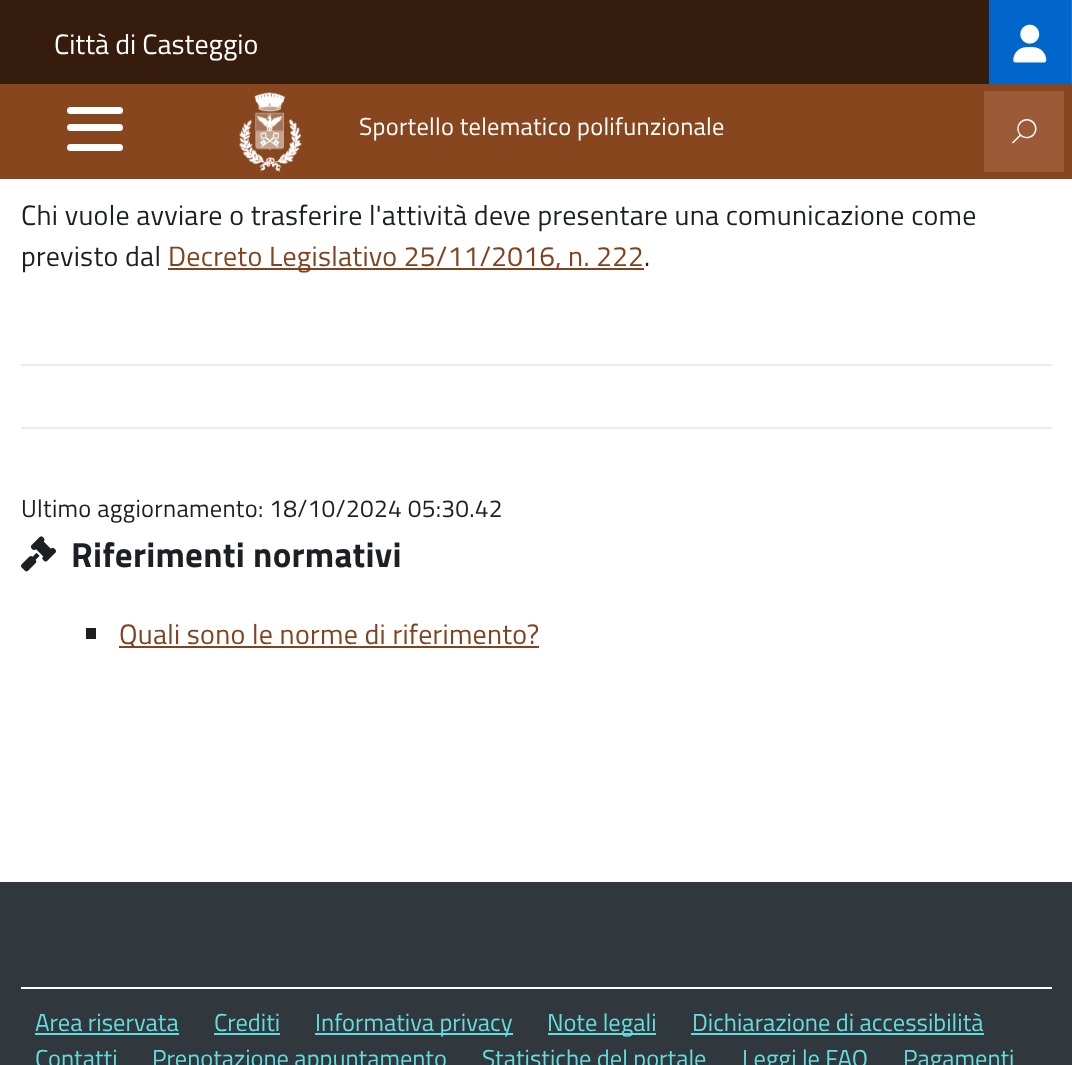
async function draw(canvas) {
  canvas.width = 1072
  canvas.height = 1065
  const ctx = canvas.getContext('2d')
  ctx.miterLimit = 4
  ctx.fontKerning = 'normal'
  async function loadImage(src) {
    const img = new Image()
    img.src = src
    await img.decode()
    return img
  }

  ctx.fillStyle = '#fff'
  ctx.fillRect(0, 0, 1072, 1065)
  ctx.fillStyle = '#361c0c'
  ctx.fillRect(0, 0, 989, 84)
  ctx.font = '28px Titillium Web'
  ctx.fillStyle = '#fff'
  ctx.fillText('Città di Casteggio', 54, 54)
  ctx.fillStyle = '#06c'
  ctx.fillRect(989, 0, 82, 84)
  ctx.fillStyle = '#1a75d1'
  ctx.fillRect(1071, 0, 1, 84)
  ctx.drawImage(await loadImage('image0.png'), 1013, 24, 34, 39)
  ctx.fillStyle = '#88461f'
  ctx.fillRect(0, 84, 1072, 95)
  ctx.fillStyle = '#fff'
  ctx.beginPath()
  ctx.roundRect(67, 124, 56, 7, 3.5)
  ctx.fill()
  ctx.beginPath()
  ctx.roundRect(67, 107, 56, 7, 3.5)
  ctx.fill()
  ctx.beginPath()
  ctx.roundRect(67, 144, 56, 7, 3.5)
  ctx.fill()
  ctx.drawImage(await loadImage('image1.png'), 239, 92, 63, 80)
  ctx.letterSpacing = '0.25px'
  ctx.font = '24.5px Titillium Web'
  ctx.fillText('Sportello telematico polifunzionale', 359, 135)
  ctx.fillStyle = '#9b5b36'
  ctx.fillRect(984, 91, 80, 81)
  ctx.letterSpacing = '0px'
  ctx.font = '24.5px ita'
  ctx.fillStyle = '#fff'
  ctx.fillText('🔍', 1012, 142)
  ctx.letterSpacing = '0.28px'
  ctx.font = '28px Titillium Web'
  ctx.fillStyle = '#1c2024'
  ctx.fillText('Chi vuole avviare o trasferire l\'attività deve presentare una comunicazione come', 21, 225)
  ctx.fillText('previsto dal', 21, 266)
  ctx.fillStyle = '#80421f'
  ctx.fillRect(168, 268, 476, 2)
  ctx.fillText('Decreto Legislativo 25/11/2016, n. 222', 168, 266)
  ctx.fillStyle = '#1c2024'
  ctx.fillText('.', 644, 266)
  ctx.fillStyle = '#ececec'
  ctx.fillRect(21, 364, 1031, 2)
  ctx.fillRect(21, 427, 1031, 2)
  ctx.font = '24.5px Titillium Web'
  ctx.fillStyle = '#1c2024'
  ctx.fillText('Ultimo aggiornamento: 18/10/2024 05:30.42', 21, 517)
  ctx.drawImage(await loadImage('image2.png'), 21, 536, 35, 36)
  ctx.letterSpacing = '0.25px'
  ctx.font = 'bold 35px Titillium Web'
  ctx.fillText('Riferimenti normativi', 71, 567)
  ctx.fillRect(86, 628, 10, 11)
  ctx.fillStyle = '#80421f'
  ctx.fillRect(119, 646, 420, 2)
  ctx.letterSpacing = '0.28px'
  ctx.font = '28px Titillium Web'
  ctx.fillText('Quali sono le norme di riferimento?', 119, 644)
  ctx.fillStyle = '#30373d'
  ctx.fillRect(0, 882, 1072, 183)
  ctx.fillStyle = '#fff'
  ctx.fillRect(21, 987, 1031, 2)
  ctx.letterSpacing = '0px'
  ctx.font = '24.5px Titillium Web'
  ctx.fillStyle = '#65dcdf'
  ctx.fillText('Area riservata', 35, 1031)
  ctx.fillRect(35, 1033, 144, 2)
  ctx.fillText('Crediti', 214, 1031)
  ctx.fillRect(214, 1033, 66, 2)
  ctx.fillRect(315, 1033, 198, 2)
  ctx.fillText('Informativa privacy', 315, 1031)
  ctx.fillRect(548, 1033, 108, 2)
  ctx.fillText('Note legali', 547, 1031)
  ctx.fillText('Dichiarazione di accessibilità', 692, 1031)
  ctx.fillRect(691, 1033, 293, 2)
  ctx.fillText('Contatti', 35, 1067)
  ctx.fillText('Prenotazione appuntamento', 152, 1067)
  ctx.fillText('Statistiche del portale', 482, 1067)
  ctx.fillText('Leggi le FAQ', 742, 1067)
  ctx.fillText('Pagamenti', 903, 1067)
}

draw(document.querySelector('canvas'))
